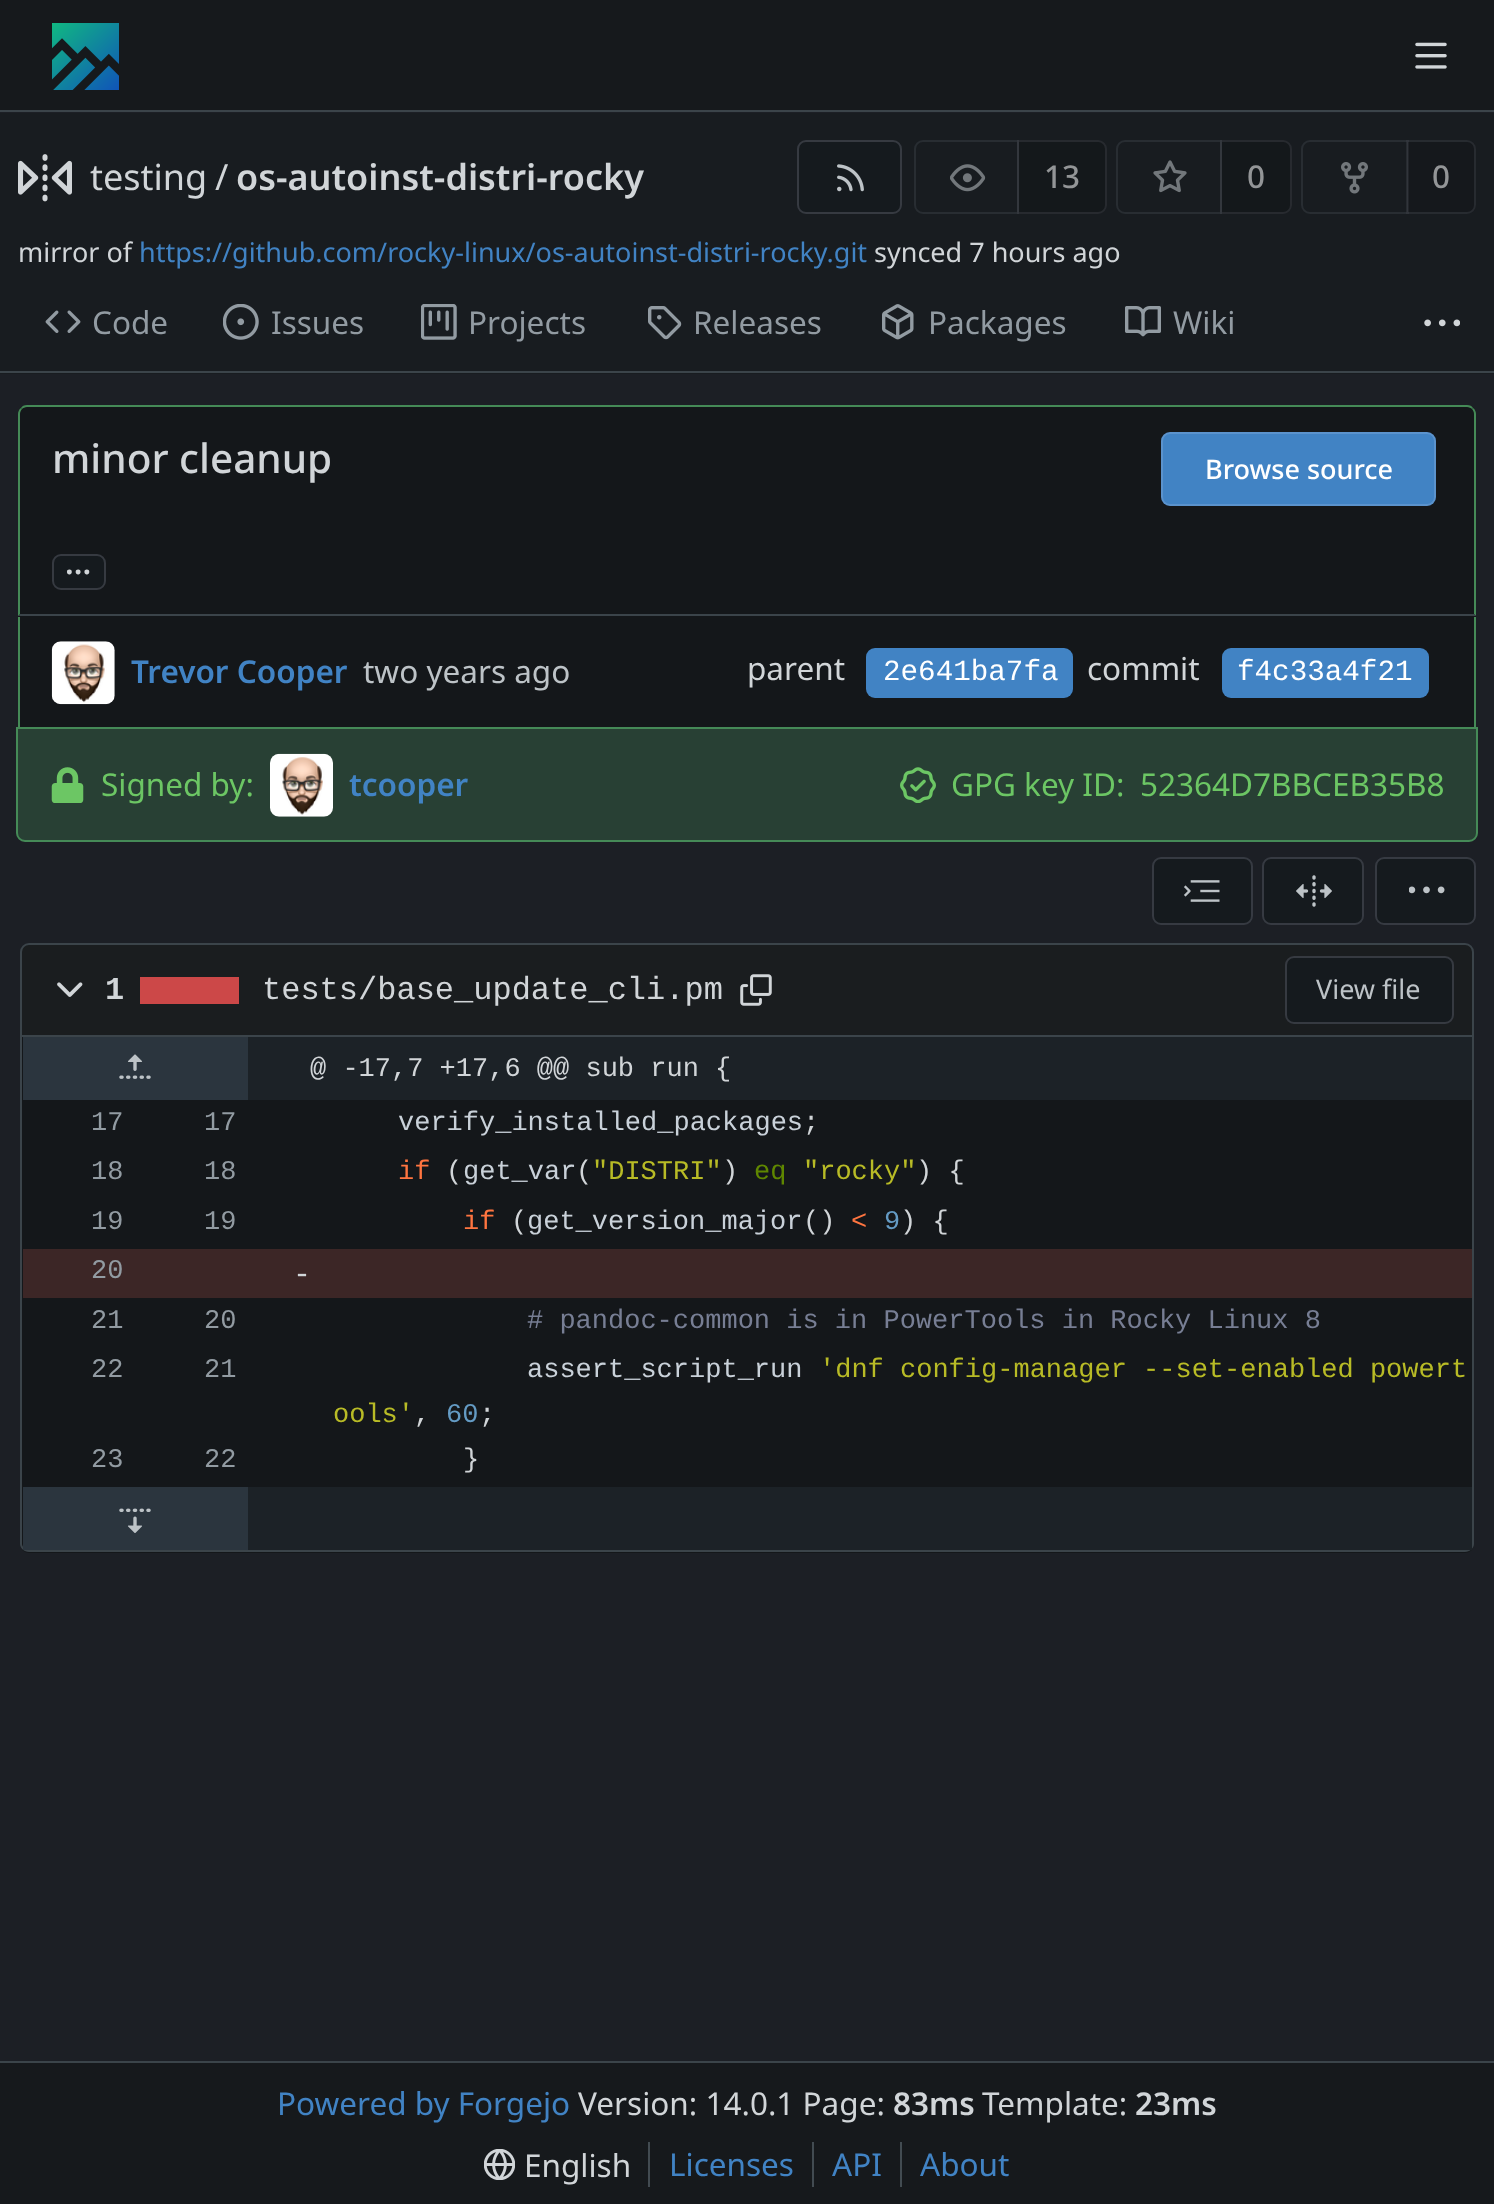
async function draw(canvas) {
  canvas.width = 1494
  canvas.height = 2204
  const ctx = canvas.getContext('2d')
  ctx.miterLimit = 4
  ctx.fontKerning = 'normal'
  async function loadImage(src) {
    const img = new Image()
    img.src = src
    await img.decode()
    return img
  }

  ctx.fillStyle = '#1c1f25'
  ctx.fillRect(0, 0, 1494, 2204)
  ctx.fillStyle = '#16191c'
  ctx.fillRect(0, 0, 1494, 110)
  ctx.fillStyle = '#3b444a'
  ctx.fillRect(0, 110, 1494, 2)
  ctx.drawImage(await loadImage('image0.png'), 52, 23, 67, 67)
  ctx.drawImage(await loadImage('image1.png'), 1415, 42, 32, 27)
  ctx.fillStyle = '#181c20'
  ctx.fillRect(0, 113, 1494, 261)
  ctx.drawImage(await loadImage('image2.png'), 18, 154, 54, 48)
  ctx.font = '36px Noto Sans'
  ctx.fillStyle = '#d1d5d8'
  ctx.fillText('testing', 90, 190)
  ctx.fillText('/', 215, 190)
  ctx.font = '600 36px Noto Sans'
  ctx.fillText('os-autoinst-distri-rocky', 236, 190)
  ctx.fillStyle = '#151a1e'
  ctx.beginPath()
  ctx.roundRect(798, 141, 103, 72, 8)
  ctx.fill()
  ctx.strokeStyle = '#363a41'
  ctx.lineWidth = 2
  ctx.stroke()
  ctx.drawImage(await loadImage('image3.png'), 837, 164, 27, 28)
  ctx.beginPath()
  ctx.roundRect(915, 141, 103, 72, [8, 0, 0, 8])
  ctx.strokeStyle = '#282d32'
  ctx.stroke()
  ctx.drawImage(await loadImage('image4.png'), 950, 164, 36, 28)
  ctx.fillStyle = '#00000024'
  ctx.beginPath()
  ctx.roundRect(1017, 140, 90, 74, [0, 9, 9, 0])
  ctx.fill()
  ctx.beginPath()
  ctx.roundRect(1018, 141, 88, 72, [0, 8, 8, 0])
  ctx.strokeStyle = '#e8e8ff17'
  ctx.stroke()
  ctx.font = '500 31.5px Noto Sans'
  ctx.fillStyle = '#939597'
  ctx.fillText('13', 1044, 188)
  ctx.beginPath()
  ctx.roundRect(1117, 141, 104, 72, [8, 0, 0, 8])
  ctx.strokeStyle = '#282d32'
  ctx.stroke()
  ctx.drawImage(await loadImage('image5.png'), 1153, 160, 34, 33)
  ctx.fillStyle = '#00000024'
  ctx.beginPath()
  ctx.roundRect(1220, 140, 72, 74, [0, 9, 9, 0])
  ctx.fill()
  ctx.beginPath()
  ctx.roundRect(1221, 141, 70, 72, [0, 8, 8, 0])
  ctx.strokeStyle = '#e8e8ff17'
  ctx.stroke()
  ctx.fillStyle = '#939597'
  ctx.fillText('0', 1247, 188)
  ctx.beginPath()
  ctx.roundRect(1302, 141, 106, 72, [8, 0, 0, 8])
  ctx.strokeStyle = '#282d32'
  ctx.stroke()
  ctx.drawImage(await loadImage('image6.png'), 1341, 162, 27, 32)
  ctx.fillStyle = '#0b0d0e40'
  ctx.beginPath()
  ctx.roundRect(1406, 140, 70, 74, [0, 9, 9, 0])
  ctx.fill()
  ctx.beginPath()
  ctx.roundRect(1407, 141, 68, 72, [0, 8, 8, 0])
  ctx.strokeStyle = '#8a8c9b29'
  ctx.stroke()
  ctx.fillStyle = '#939597'
  ctx.fillText('0', 1432, 188)
  ctx.font = '27px Noto Sans'
  ctx.fillStyle = '#d1d5d8'
  ctx.fillText('mirror of', 18, 262)
  ctx.fillStyle = '#4183c4'
  ctx.fillText('https://github.com/rocky-linux/os-autoinst-distri-rocky.git', 139, 262)
  ctx.fillStyle = '#d1d5d8'
  ctx.fillText('synced 7 hours ago', 874, 262)
  ctx.drawImage(await loadImage('image7.png'), 45, 310, 36, 23)
  ctx.font = '31.5px Noto Sans'
  ctx.fillStyle = '#929ba2'
  ctx.fillText('Code', 92, 334)
  ctx.drawImage(await loadImage('image8.png'), 223, 304, 36, 36)
  ctx.fillText('Issues', 271, 334)
  ctx.drawImage(await loadImage('image9.png'), 421, 304, 36, 36)
  ctx.fillText('Projects', 468, 334)
  ctx.drawImage(await loadImage('image10.png'), 648, 306, 34, 34)
  ctx.fillText('Releases', 693, 334)
  ctx.drawImage(await loadImage('image11.png'), 882, 304, 32, 36)
  ctx.fillText('Packages', 928, 334)
  ctx.drawImage(await loadImage('image12.png'), 1125, 306, 36, 31)
  ctx.fillText('Wiki', 1173, 334)
  ctx.drawImage(await loadImage('image13.png'), 1424, 319, 36, 8)
  ctx.fillStyle = '#3b444a'
  ctx.fillRect(0, 371, 1494, 2)
  ctx.fillStyle = '#14171a'
  ctx.beginPath()
  ctx.roundRect(18, 405, 1458, 212, [9, 9, 0, 0])
  ctx.fill()
  ctx.fillStyle = '#458a57'
  ctx.beginPath()
  ctx.moveTo(27, 405)
  ctx.bezierCurveTo(24, 405, 22, 406, 21, 408)
  ctx.lineTo(22, 409)
  ctx.bezierCurveTo(23, 408, 25, 407, 27, 407)
  ctx.lineTo(1467, 407)
  ctx.bezierCurveTo(1469, 407, 1471, 408, 1472, 409)
  ctx.lineTo(1473, 408)
  ctx.bezierCurveTo(1472, 406, 1470, 405, 1467, 405)
  ctx.closePath()
  ctx.fill()
  ctx.beginPath()
  ctx.moveTo(1476, 616)
  ctx.lineTo(1476, 414)
  ctx.bezierCurveTo(1476, 412, 1475, 409, 1473, 408)
  ctx.lineTo(1472, 409)
  ctx.bezierCurveTo(1473, 410, 1474, 412, 1474, 414)
  ctx.lineTo(1474, 614)
  ctx.closePath()
  ctx.fill()
  ctx.fillStyle = '#3b444a'
  ctx.beginPath()
  ctx.moveTo(1476, 616)
  ctx.lineTo(18, 616)
  ctx.lineTo(20, 614)
  ctx.lineTo(1474, 614)
  ctx.closePath()
  ctx.fill()
  ctx.fillStyle = '#458a57'
  ctx.beginPath()
  ctx.moveTo(18, 414)
  ctx.lineTo(18, 616)
  ctx.lineTo(20, 614)
  ctx.lineTo(20, 414)
  ctx.bezierCurveTo(20, 412, 21, 410, 22, 409)
  ctx.lineTo(21, 408)
  ctx.bezierCurveTo(19, 409, 18, 412, 18, 414)
  ctx.closePath()
  ctx.fill()
  ctx.font = '500 40.5px Noto Sans'
  ctx.fillStyle = '#d1d5d8'
  ctx.fillText('minor cleanup', 52, 473)
  ctx.fillStyle = '#4183c4'
  ctx.beginPath()
  ctx.roundRect(1161, 432, 275, 74, 9)
  ctx.fill()
  ctx.beginPath()
  ctx.roundRect(1162, 433, 273, 72, 8)
  ctx.strokeStyle = '#e8e8ff29'
  ctx.stroke()
  ctx.font = '500 27px Noto Sans'
  ctx.fillStyle = '#fff'
  ctx.fillText('Browse source', 1205, 479)
  ctx.fillStyle = '#151a1e'
  ctx.beginPath()
  ctx.roundRect(53, 555, 52, 34, 8)
  ctx.fill()
  ctx.strokeStyle = '#363a41'
  ctx.stroke()
  ctx.font = '600 31.5px Noto Sans'
  ctx.fillStyle = '#d1d5d8'
  ctx.fillText('...', 65, 574)
  ctx.fillStyle = '#14171a'
  ctx.fillRect(20, 617, 1454, 110)
  ctx.fillStyle = '#458a57'
  ctx.fillRect(1474, 617, 2, 112)
  ctx.fillRect(18, 617, 2, 112)
  ctx.drawImage(await loadImage('image14.png'), 51, 641, 64, 64)
  ctx.fillStyle = '#4183c4'
  ctx.fillText('Trevor Cooper', 131, 683)
  ctx.font = '31.5px Noto Sans'
  ctx.fillStyle = '#bdc3c7'
  ctx.fillText('two years ago', 363, 683)
  ctx.fillStyle = '#d1d5d8'
  ctx.fillText('parent', 747, 680)
  ctx.fillStyle = '#4183c4'
  ctx.beginPath()
  ctx.roundRect(866, 648, 207, 50, 9)
  ctx.fill()
  ctx.font = '29.25px Liberation Mono'
  ctx.fillStyle = '#fff'
  ctx.fillText('2e641ba7fa', 883, 680)
  ctx.font = '31.5px Noto Sans'
  ctx.fillStyle = '#d1d5d8'
  ctx.fillText('commit', 1087, 680)
  ctx.fillStyle = '#4183c4'
  ctx.beginPath()
  ctx.roundRect(1222, 648, 207, 50, 9)
  ctx.fill()
  ctx.font = '29.25px Liberation Mono'
  ctx.fillStyle = '#fff'
  ctx.fillText('f4c33a4f21', 1237, 680)
  ctx.fillStyle = '#284034'
  ctx.beginPath()
  ctx.roundRect(17, 728, 1460, 113, [0, 0, 8, 8])
  ctx.fill()
  ctx.strokeStyle = '#458a57'
  ctx.stroke()
  ctx.drawImage(await loadImage('image15.png'), 51, 767, 33, 36)
  ctx.font = '31.5px Noto Sans'
  ctx.fillStyle = '#6cc664'
  ctx.fillText('Signed by:', 101, 796)
  ctx.drawImage(await loadImage('image16.png'), 270, 753, 63, 64)
  ctx.font = '600 31.5px Noto Sans'
  ctx.fillStyle = '#4183c4'
  ctx.fillText('tcooper', 349, 796)
  ctx.drawImage(await loadImage('image17.png'), 900, 767, 36, 36)
  ctx.font = '31.5px Noto Sans'
  ctx.fillStyle = '#6cc664'
  ctx.fillText('GPG key ID:', 951, 796)
  ctx.fillText('52364D7BBCEB35B8', 1140, 796)
  ctx.fillStyle = '#151a1e'
  ctx.beginPath()
  ctx.roundRect(1152, 857, 101, 68, 9)
  ctx.fill()
  ctx.beginPath()
  ctx.roundRect(1153, 858, 99, 66, 8)
  ctx.strokeStyle = '#e8e8ff29'
  ctx.stroke()
  ctx.drawImage(await loadImage('image18.png'), 1184, 880, 36, 22)
  ctx.beginPath()
  ctx.roundRect(1262, 857, 102, 68, 9)
  ctx.fill()
  ctx.beginPath()
  ctx.roundRect(1263, 858, 100, 66, 8)
  ctx.stroke()
  ctx.drawImage(await loadImage('image19.png'), 1296, 875, 36, 32)
  ctx.beginPath()
  ctx.roundRect(1375, 857, 101, 68, 9)
  ctx.fill()
  ctx.beginPath()
  ctx.roundRect(1376, 858, 99, 66, 8)
  ctx.stroke()
  ctx.drawImage(await loadImage('image20.png'), 1409, 886, 36, 8)
  ctx.fillStyle = '#1a1d1f'
  ctx.beginPath()
  ctx.roundRect(21, 944, 1452, 92, [8, 8, 0, 0])
  ctx.fill()
  ctx.strokeStyle = '#3b444a'
  ctx.stroke()
  ctx.drawImage(await loadImage('image21.png'), 57, 982, 26, 15)
  ctx.font = 'bold 32px Liberation Mono'
  ctx.fillStyle = '#d1d5d8'
  ctx.fillText('1', 105, 999)
  ctx.fillStyle = '#cc4848'
  ctx.fillRect(140, 977, 99, 27)
  ctx.font = '32px Liberation Mono'
  ctx.fillStyle = '#d1d5d8'
  ctx.fillText('tests/base_update_cli.pm', 262, 999)
  ctx.drawImage(await loadImage('image22.png'), 740, 974, 32, 32)
  ctx.fillStyle = '#151a1e'
  ctx.beginPath()
  ctx.roundRect(1286, 957, 167, 66, 8)
  ctx.fill()
  ctx.strokeStyle = '#363a41'
  ctx.stroke()
  ctx.font = '27px Noto Sans'
  ctx.fillStyle = '#bdc3c7'
  ctx.fillText('View file', 1316, 999)
  ctx.fillStyle = '#14171a'
  ctx.beginPath()
  ctx.roundRect(20, 1037, 1454, 516, [0, 0, 9, 9])
  ctx.fill()
  ctx.fillStyle = '#3b444a'
  ctx.beginPath()
  ctx.moveTo(20, 1037)
  ctx.lineTo(1474, 1037)
  ctx.lineTo(1474, 1544)
  ctx.bezierCurveTo(1474, 1548, 1470, 1552, 1465, 1552)
  ctx.lineTo(29, 1552)
  ctx.bezierCurveTo(24, 1552, 20, 1548, 20, 1544)
  ctx.closePath()
  ctx.moveTo(22, 1037)
  ctx.lineTo(1472, 1037)
  ctx.lineTo(1472, 1544)
  ctx.bezierCurveTo(1472, 1547, 1468, 1550, 1465, 1550)
  ctx.lineTo(29, 1550)
  ctx.bezierCurveTo(26, 1550, 22, 1547, 22, 1544)
  ctx.closePath()
  ctx.fill('evenodd')
  ctx.fillStyle = '#1c2227'
  ctx.fillRect(248, 1037, 1224, 63)
  ctx.fillStyle = '#2b353e'
  ctx.fillRect(23, 1037, 225, 63)
  ctx.drawImage(await loadImage('image23.png'), 119, 1054, 32, 25)
  ctx.font = '27px Liberation Mono'
  ctx.fillStyle = '#d1d5d8'
  ctx.fillText('@ -17,7 +17,6 @@ sub run {', 310, 1076)
  ctx.fillStyle = '#929ba2'
  ctx.fillText('17', 91, 1130)
  ctx.fillText('17', 204, 1130)
  ctx.fillStyle = '#c9d1d9'
  ctx.fillText('verify_installed_packages', 398, 1130)
  ctx.fillStyle = '#d1d5d8'
  ctx.fillText(';', 803, 1130)
  ctx.fillStyle = '#929ba2'
  ctx.fillText('18', 91, 1179)
  ctx.fillText('18', 204, 1179)
  ctx.fillStyle = '#ff7540'
  ctx.fillText('if', 398, 1179)
  ctx.fillStyle = '#d1d5d8'
  ctx.fillText('(', 446, 1179)
  ctx.fillStyle = '#c9d1d9'
  ctx.fillText('get_var', 463, 1179)
  ctx.fillStyle = '#d1d5d8'
  ctx.fillText('(', 576, 1179)
  ctx.fillStyle = '#b8bb26'
  ctx.fillText('"DISTRI"', 592, 1179)
  ctx.fillStyle = '#d1d5d8'
  ctx.fillText(')', 722, 1179)
  ctx.fillStyle = '#5f8700'
  ctx.fillText('eq', 754, 1179)
  ctx.fillStyle = '#b8bb26'
  ctx.fillText('"rocky"', 803, 1179)
  ctx.fillStyle = '#d1d5d8'
  ctx.fillText(') {', 916, 1179)
  ctx.fillStyle = '#929ba2'
  ctx.fillText('19', 91, 1229)
  ctx.fillText('19', 204, 1229)
  ctx.fillStyle = '#ff7540'
  ctx.fillText('if', 463, 1229)
  ctx.fillStyle = '#d1d5d8'
  ctx.fillText('(', 511, 1229)
  ctx.fillStyle = '#c9d1d9'
  ctx.fillText('get_version_major', 527, 1229)
  ctx.fillStyle = '#d1d5d8'
  ctx.fillText('()', 803, 1229)
  ctx.fillStyle = '#ff7540'
  ctx.fillText('<', 851, 1229)
  ctx.fillStyle = '#649bc4'
  ctx.fillText('9', 884, 1229)
  ctx.fillStyle = '#d1d5d8'
  ctx.fillText(') {', 900, 1229)
  ctx.fillStyle = '#3c2626'
  ctx.fillRect(23, 1249, 1449, 49)
  ctx.fillStyle = '#929ba2'
  ctx.fillText('20', 91, 1278)
  ctx.font = '30px Liberation Mono'
  ctx.fillStyle = '#d1d5d8'
  ctx.fillText('-', 293, 1283)
  ctx.font = '27px Liberation Mono'
  ctx.fillStyle = '#929ba2'
  ctx.fillText('21', 91, 1328)
  ctx.fillText('20', 204, 1328)
  ctx.fillStyle = '#777e94'
  ctx.fillText('# pandoc-common is in PowerTools in Rocky Linux 8', 527, 1328)
  ctx.fillStyle = '#929ba2'
  ctx.fillText('22', 91, 1377)
  ctx.fillText('21', 204, 1377)
  ctx.fillStyle = '#c9d1d9'
  ctx.fillText('assert_script_run', 527, 1377)
  ctx.fillStyle = '#b8bb26'
  ctx.fillText('\'dnf config-manager --set-enabled powert', 819, 1377)
  ctx.fillText('ools\'', 333, 1422)
  ctx.fillStyle = '#d1d5d8'
  ctx.fillText(',', 414, 1422)
  ctx.fillStyle = '#649bc4'
  ctx.fillText('60', 446, 1422)
  ctx.fillStyle = '#d1d5d8'
  ctx.fillText(';', 479, 1422)
  ctx.fillStyle = '#929ba2'
  ctx.fillText('23', 91, 1467)
  ctx.fillText('22', 204, 1467)
  ctx.fillStyle = '#d1d5d8'
  ctx.fillText('}', 463, 1467)
  ctx.fillStyle = '#1c2227'
  ctx.fillRect(248, 1487, 1224, 63)
  ctx.fillStyle = '#2b353e'
  ctx.fillRect(23, 1487, 225, 63)
  ctx.drawImage(await loadImage('image24.png'), 119, 1508, 32, 25)
  ctx.fillStyle = '#16191c'
  ctx.fillRect(0, 2063, 1494, 141)
  ctx.fillStyle = '#3b444a'
  ctx.fillRect(0, 2061, 1494, 2)
  ctx.font = '31.5px Noto Sans'
  ctx.fillStyle = '#4183c4'
  ctx.fillText('Powered by Forgejo', 277, 2115)
  ctx.fillStyle = '#d1d5d8'
  ctx.fillText('Version: 14.0.1 Page:', 578, 2115)
  ctx.font = '600 31.5px Noto Sans'
  ctx.fillText('83ms', 893, 2115)
  ctx.font = '31.5px Noto Sans'
  ctx.fillText('Template:', 982, 2115)
  ctx.font = '600 31.5px Noto Sans'
  ctx.fillText('23ms', 1135, 2115)
  ctx.drawImage(await loadImage('image25.png'), 484, 2149, 31, 31)
  ctx.font = '31.5px Noto Sans'
  ctx.fillText('English', 524, 2177)
  ctx.fillStyle = '#424b51'
  ctx.fillRect(648, 2142, 2, 45)
  ctx.fillStyle = '#4183c4'
  ctx.fillText('Licenses', 669, 2176)
  ctx.fillStyle = '#424b51'
  ctx.fillRect(812, 2142, 2, 45)
  ctx.fillStyle = '#4183c4'
  ctx.fillText('API', 832, 2176)
  ctx.fillStyle = '#424b51'
  ctx.fillRect(900, 2142, 2, 45)
  ctx.fillStyle = '#4183c4'
  ctx.fillText('About', 920, 2176)
}

draw(document.querySelector('canvas'))
